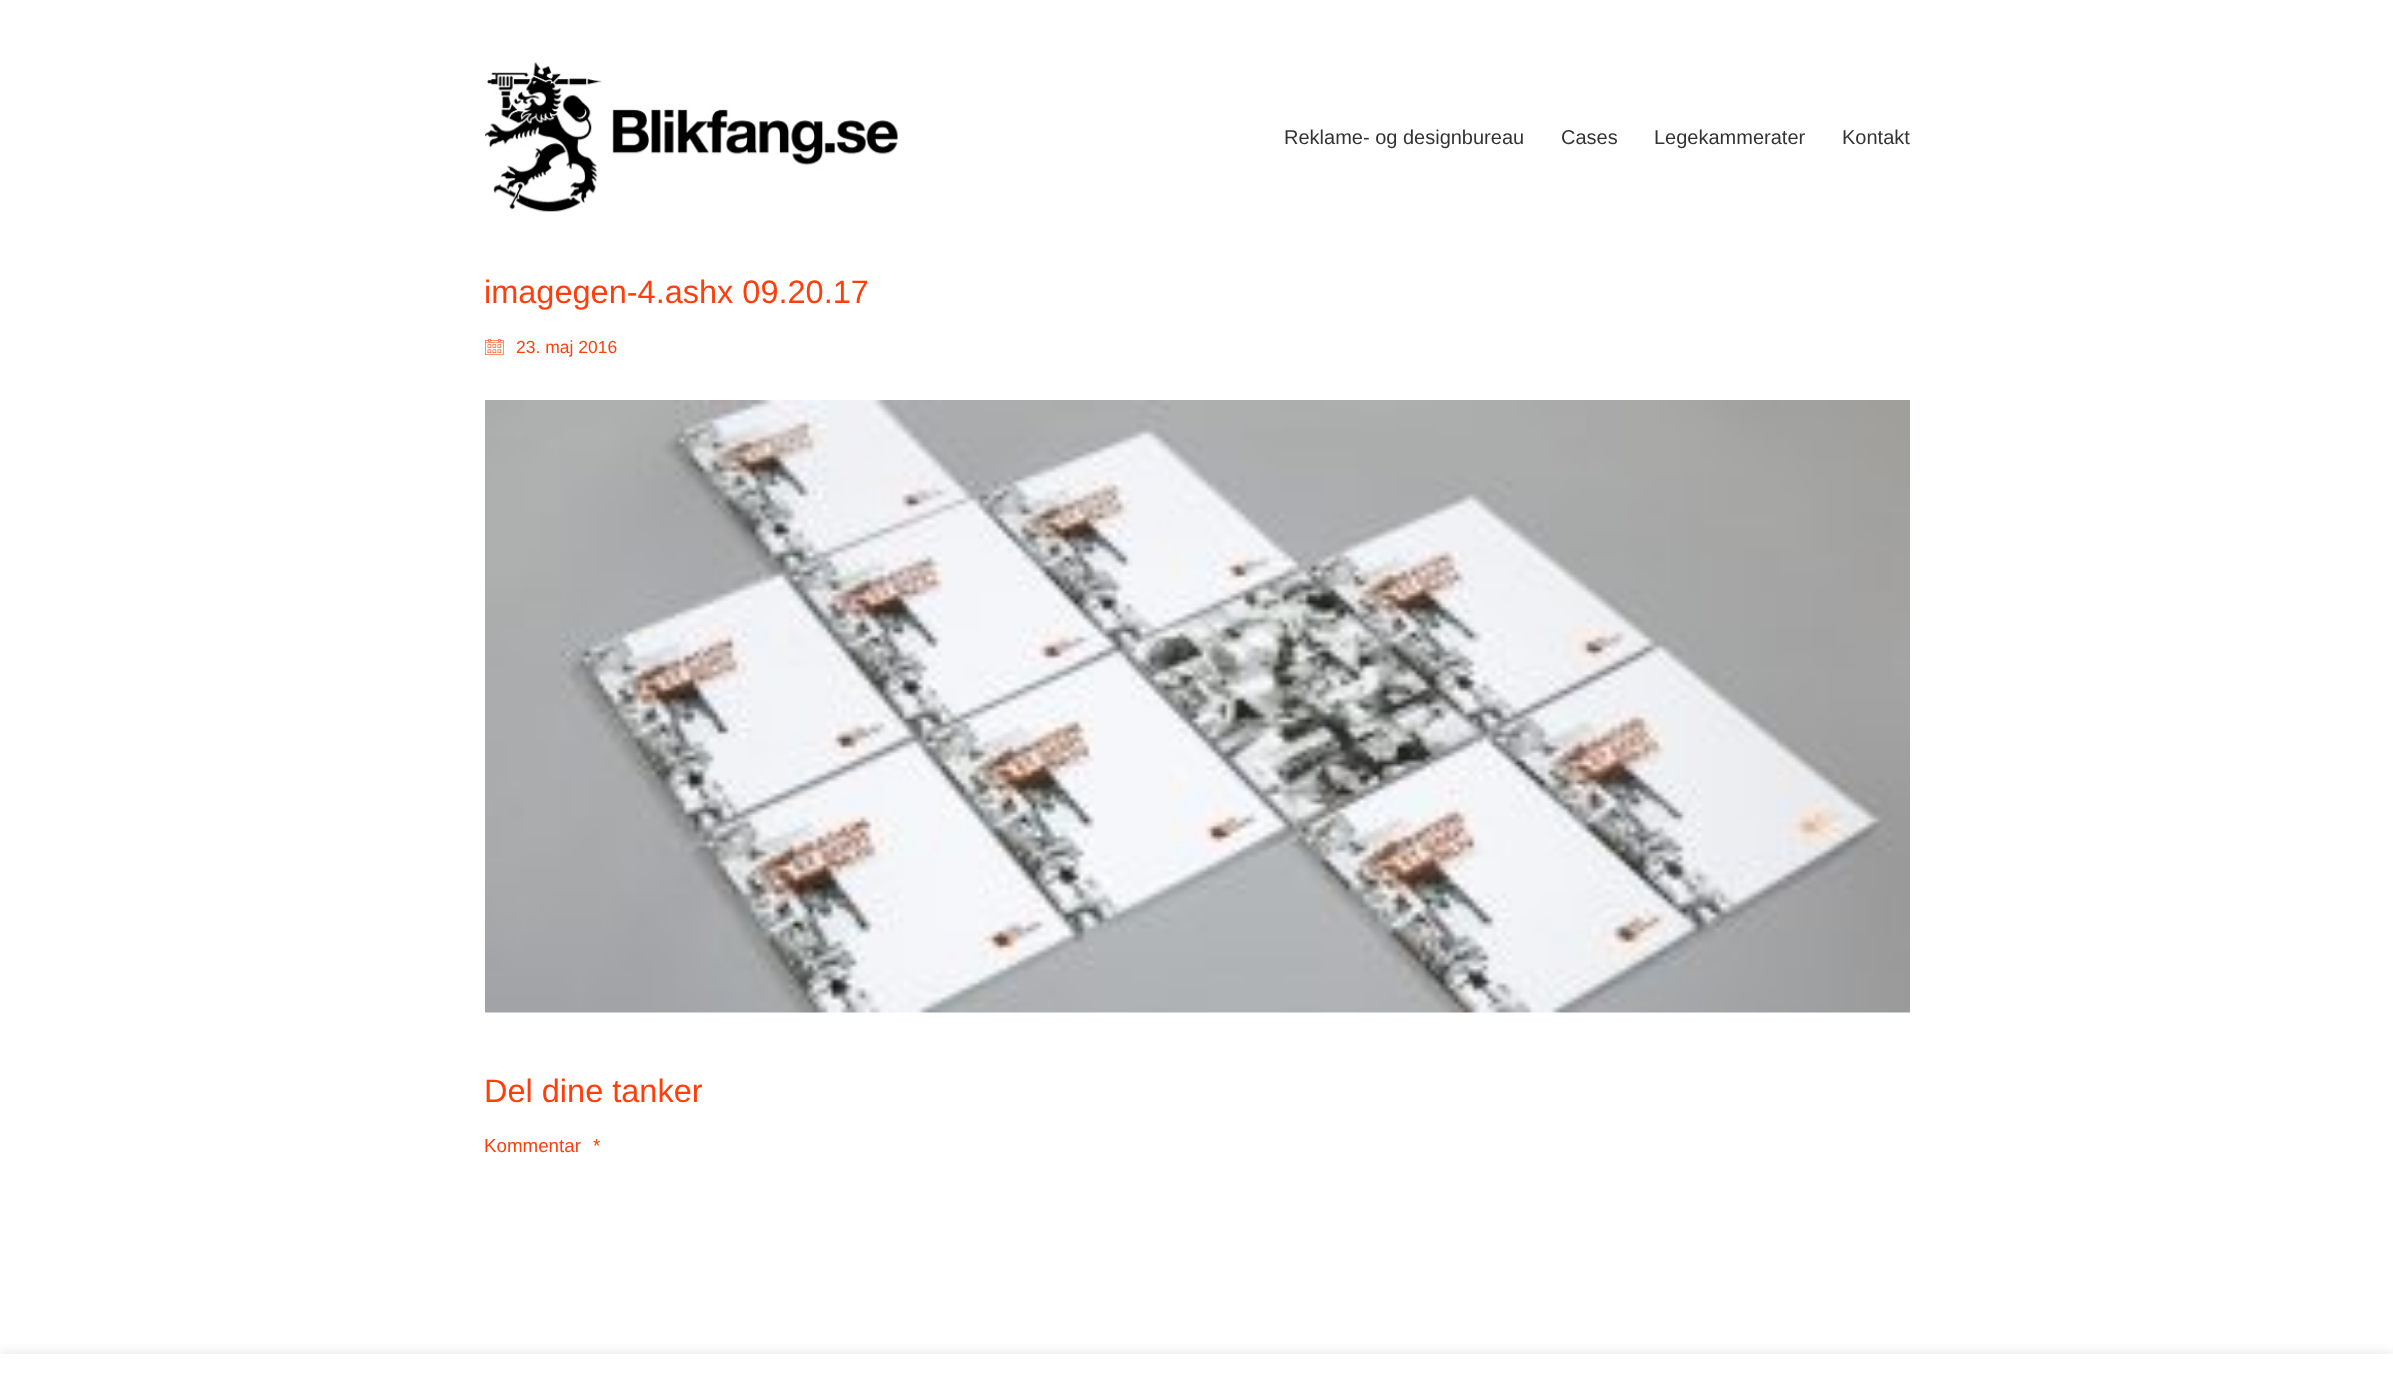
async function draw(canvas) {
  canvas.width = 2393
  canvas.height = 1383
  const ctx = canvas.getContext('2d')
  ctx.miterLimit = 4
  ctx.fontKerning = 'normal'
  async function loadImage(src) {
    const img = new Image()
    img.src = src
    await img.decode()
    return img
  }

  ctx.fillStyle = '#fff'
  ctx.fillRect(0, 0, 2393, 1383)
  ctx.drawImage(await loadImage('image0.png'), 485, 62, 413, 150)
  ctx.font = '20px Liberation Sans'
  ctx.fillStyle = '#333'
  ctx.fillText('Reklame- og designbureau', 1284, 144)
  ctx.fillText('Cases', 1561, 144)
  ctx.fillText('Legekammerater', 1654, 144)
  ctx.fillText('Kontakt', 1842, 144)
  ctx.font = '32.5px Liberation Sans'
  ctx.fillStyle = '#ff3f0b'
  ctx.fillText('imagegen-4.ashx 09.20.17', 484, 303)
  ctx.drawImage(await loadImage('image1.png'), 485, 338, 19, 17)
  ctx.font = '17.5px Liberation Sans'
  ctx.fillText('23. maj 2016', 516, 353)
  ctx.drawImage(await loadImage('image2.png'), 485, 400, 1425, 613)
  ctx.font = '32.5px Liberation Sans'
  ctx.fillText('Del dine tanker', 484, 1102)
  ctx.font = '18.75px Liberation Sans'
  ctx.fillText('Kommentar', 484, 1152)
  ctx.fillText('*', 593, 1152)
  ctx.save()
  ctx.beginPath()
  ctx.rect(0, 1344, 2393, 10)
  ctx.clip()
  ctx.fillStyle = '#acabab4d'
  ctx.filter = 'blur(6px)'
  ctx.beginPath()
  ctx.rect(0, 1353, 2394, 30)
  ctx.fill()
  ctx.filter = 'none'
  ctx.restore()
}

draw(document.querySelector('canvas'))
